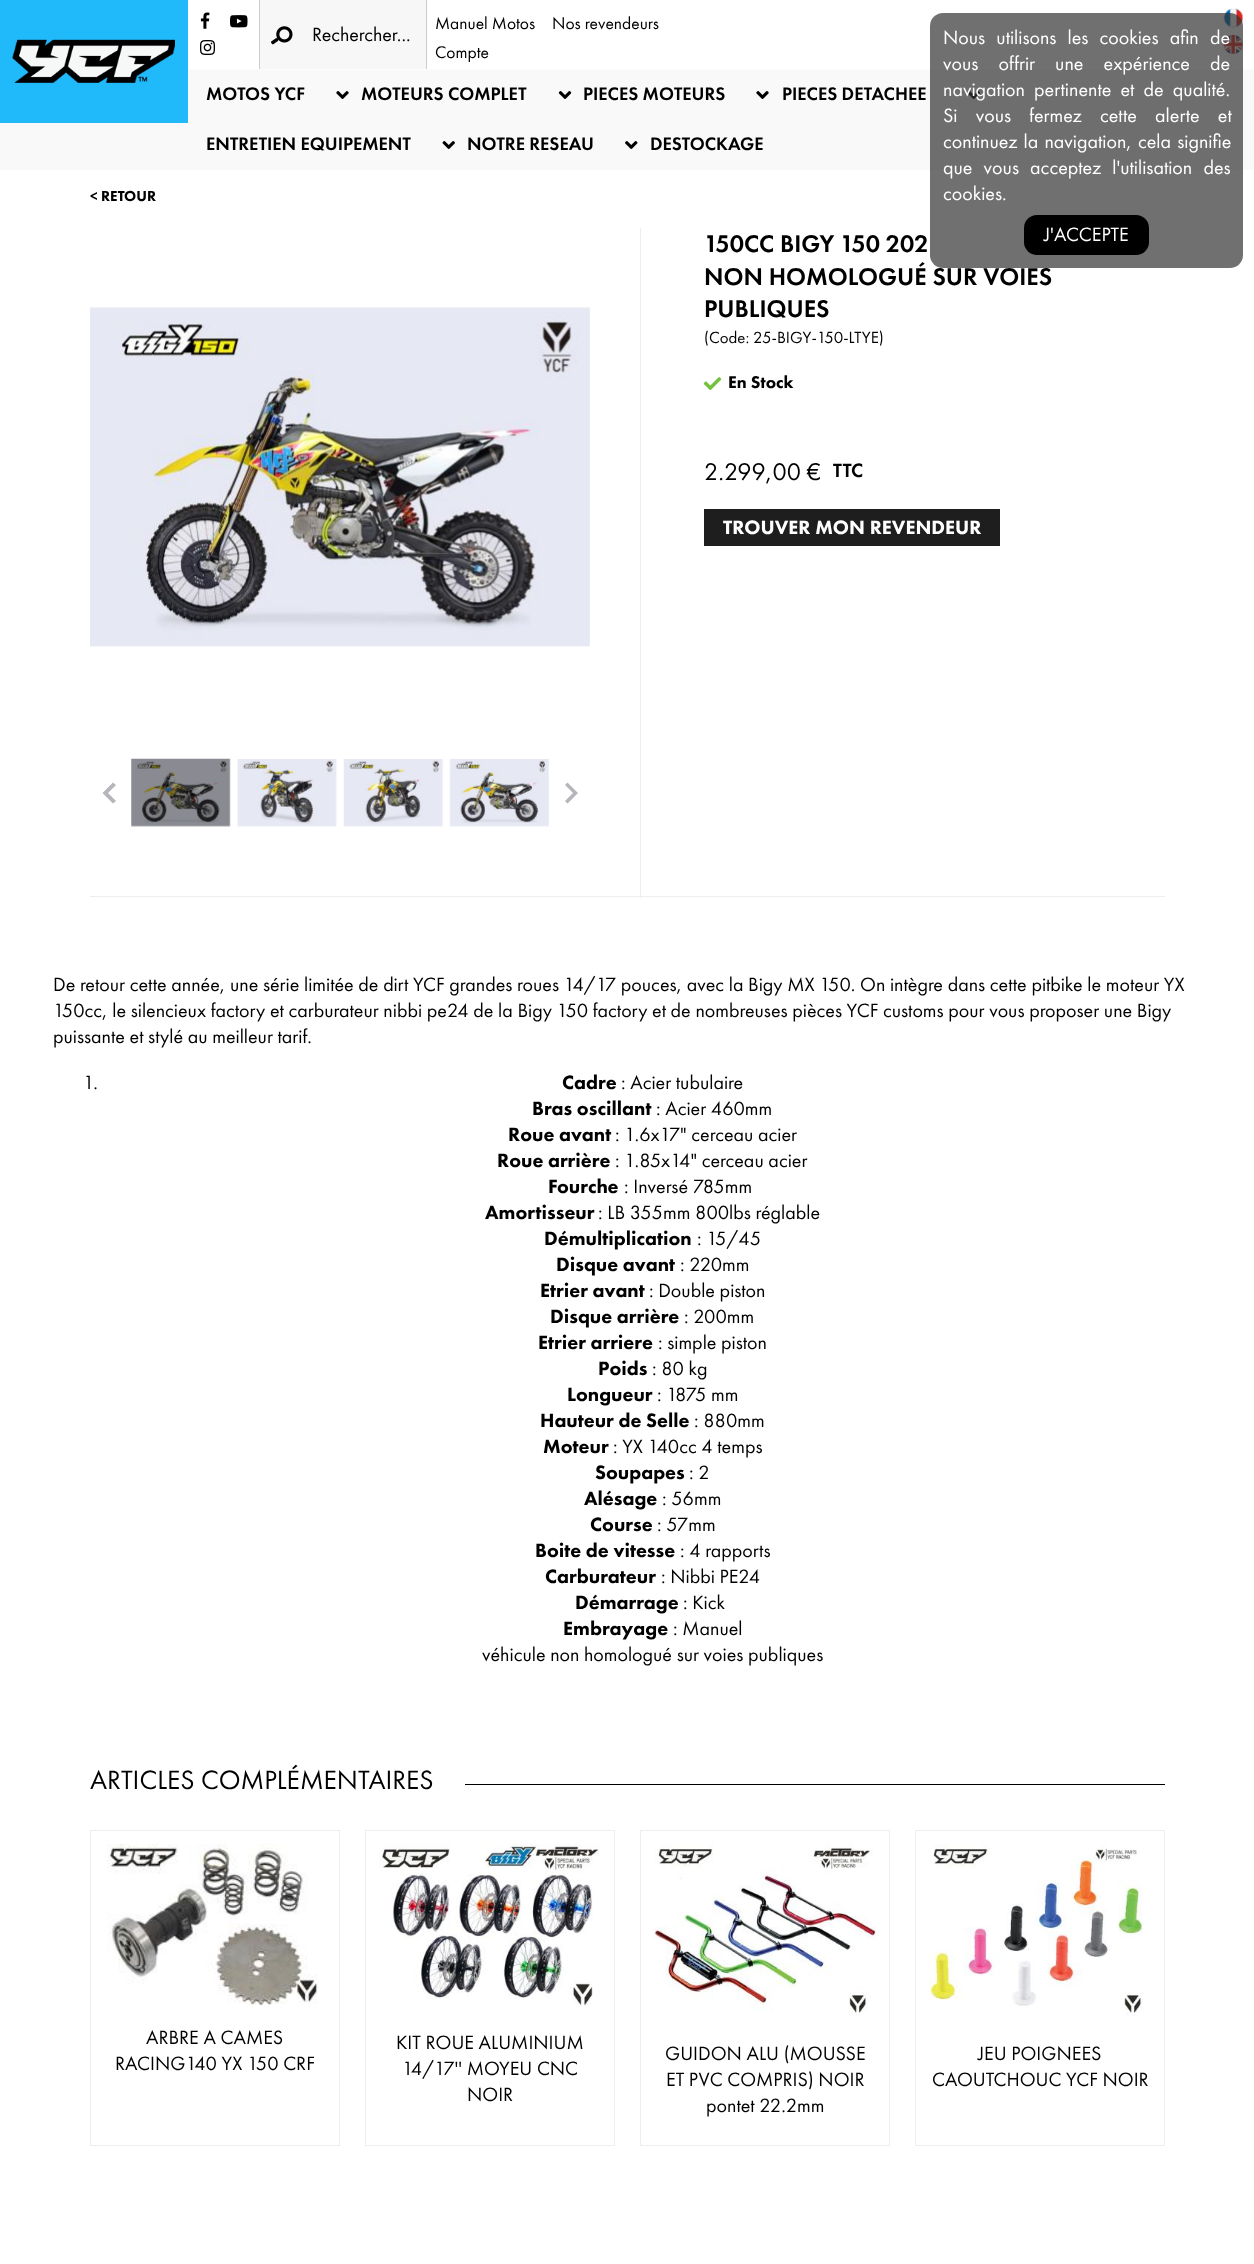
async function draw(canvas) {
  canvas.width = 1254
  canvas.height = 2264
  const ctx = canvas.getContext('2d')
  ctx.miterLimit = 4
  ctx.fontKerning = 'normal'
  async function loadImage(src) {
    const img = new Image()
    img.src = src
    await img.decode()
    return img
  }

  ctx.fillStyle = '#fff'
  ctx.fillRect(0, 0, 1254, 2264)
  ctx.fillStyle = '#f9f9f9'
  ctx.fillRect(0, 70, 1254, 100)
  ctx.fillStyle = '#20b9fa'
  ctx.fillRect(0, 0, 188, 123)
  ctx.drawImage(await loadImage('image0.png'), 12, 39, 163, 44)
  ctx.drawImage(await loadImage('image1.png'), 200, 12, 10, 17)
  ctx.drawImage(await loadImage('image2.png'), 230, 15, 18, 13)
  ctx.drawImage(await loadImage('image3.png'), 200, 40, 15, 15)
  ctx.fillStyle = '#ccc'
  ctx.fillRect(426, 0, 1, 69)
  ctx.fillRect(259, 0, 1, 69)
  ctx.fillStyle = '#f7f7f7'
  ctx.fillRect(260, 0, 166, 69)
  ctx.drawImage(await loadImage('image4.png'), 271, 26, 22, 19)
  ctx.font = '20px Futura PT'
  ctx.fillStyle = '#000'
  ctx.fillText('Rechercher...', 312, 41)
  ctx.font = '17.5px Futura PT'
  ctx.fillText('Manuel Motos', 435, 29)
  ctx.fillText('Nos revendeurs', 552, 29)
  ctx.fillText('Compte', 435, 58)
  ctx.drawImage(await loadImage('image5.png'), 1223, 8, 20, 20)
  ctx.drawImage(await loadImage('image6.png'), 1223, 35, 20, 19)
  ctx.fillStyle = '#fcfcfc'
  ctx.fillRect(188, 69, 1066, 1)
  ctx.font = '500 18.75px Futura PT'
  ctx.fillStyle = '#000'
  ctx.fillText('MOTOS YCF', 206, 100)
  ctx.drawImage(await loadImage('image7.png'), 336, 91, 13, 8)
  ctx.fillText('MOTEURS COMPLET', 361, 100)
  ctx.drawImage(await loadImage('image8.png'), 558, 91, 14, 8)
  ctx.fillText('PIECES MOTEURS', 583, 100)
  ctx.drawImage(await loadImage('image7.png'), 756, 91, 13, 8)
  ctx.fillText('PIECES DETACHEE', 782, 100)
  ctx.drawImage(await loadImage('image9.png'), 967, 91, 13, 8)
  ctx.fillText('ENTRETIEN EQUIPEMENT', 206, 150)
  ctx.drawImage(await loadImage('image9.png'), 442, 141, 13, 8)
  ctx.fillText('NOTRE RESEAU', 467, 150)
  ctx.drawImage(await loadImage('image10.png'), 625, 141, 13, 8)
  ctx.fillText('DESTOCKAGE', 650, 150)
  ctx.font = '900 15px Futura PT'
  ctx.fillText('< RETOUR', 90, 201)
  ctx.fillStyle = '#eee'
  ctx.fillRect(640, 228, 1, 670)
  ctx.fillRect(90, 896, 1075, 1)
  ctx.drawImage(await loadImage('image11.png'), 90, 307, 500, 340)
  ctx.fillStyle = '#b5b6b9'
  ctx.beginPath()
  ctx.moveTo(102.5, 793)
  ctx.lineTo(113, 782.5)
  ctx.lineTo(116, 785)
  ctx.lineTo(108, 793)
  ctx.closePath()
  ctx.moveTo(113, 803.5)
  ctx.lineTo(102.5, 793)
  ctx.lineTo(108, 793)
  ctx.lineTo(116, 801)
  ctx.closePath()
  ctx.fill()
  ctx.drawImage(await loadImage('image12.png'), 131, 758, 100, 69)
  ctx.drawImage(await loadImage('image13.png'), 237, 759, 100, 68)
  ctx.drawImage(await loadImage('image14.png'), 343, 759, 100, 68)
  ctx.drawImage(await loadImage('image15.png'), 449, 759, 100, 68)
  ctx.beginPath()
  ctx.moveTo(578, 793)
  ctx.lineTo(567.5, 803.5)
  ctx.lineTo(565, 801)
  ctx.lineTo(573, 793)
  ctx.closePath()
  ctx.moveTo(567.5, 782.5)
  ctx.lineTo(578, 793)
  ctx.lineTo(573, 793)
  ctx.lineTo(565, 785)
  ctx.closePath()
  ctx.fill()
  ctx.font = '500 25px Futura PT'
  ctx.fillStyle = '#000'
  ctx.fillText('150CC BIGY 150 202', 704, 252)
  ctx.fillText('NON HOMOLOGUÉ SUR VOIES', 704, 285)
  ctx.fillText('PUBLIQUES', 704, 317)
  ctx.font = '16.75px Futura PT'
  ctx.fillText('(Code: 25-BIGY-150-LTYE)', 704, 343)
  ctx.drawImage(await loadImage('image16.png'), 703, 377, 19, 14)
  ctx.font = '900 17.5px Futura PT'
  ctx.fillText('En Stock', 728, 388)
  ctx.font = '25px Futura PT'
  ctx.fillText('2.299,00 €', 704, 480)
  ctx.font = '500 20px Futura PT'
  ctx.fillText('TTC', 833, 477)
  ctx.fillStyle = '#1e1e1e'
  ctx.fillRect(704, 509, 296, 37)
  ctx.font = '900 20px Futura PT'
  ctx.fillStyle = '#fff'
  ctx.fillText('TROUVER MON REVENDEUR', 723, 534)
  ctx.font = '20px Futura PT'
  ctx.fillStyle = '#000'
  ctx.fillText('De retour cette année, une série limitée de dirt YCF grandes roues 14/17 pouces, avec la Bigy MX 150. On intègre dans cette pitbike le moteur YX', 53, 991)
  ctx.fillText('150cc, le silencieux factory et carburateur nibbi pe24 de la Bigy 150 factory et de nombreuses pièces YCF customs pour vous proposer une Bigy', 53, 1017)
  ctx.fillText('puissante et stylé au meilleur tarif.', 53, 1043)
  ctx.fillText('1.', 83, 1089)
  ctx.font = '900 20px Futura PT'
  ctx.fillText('Cadre', 562, 1089)
  ctx.font = '20px Futura PT'
  ctx.fillText(': Acier tubulaire', 621, 1089)
  ctx.font = '900 20px Futura PT'
  ctx.fillText('Bras oscillant', 532, 1115)
  ctx.font = '20px Futura PT'
  ctx.fillText(': Acier 460mm', 656, 1115)
  ctx.font = '900 20px Futura PT'
  ctx.fillText('Roue avant', 508, 1141)
  ctx.font = '20px Futura PT'
  ctx.fillText(': 1.6x17" cerceau acier', 615, 1141)
  ctx.font = '900 20px Futura PT'
  ctx.fillText('Roue arrière', 497, 1167)
  ctx.font = '20px Futura PT'
  ctx.fillText(': 1.85x14" cerceau acier', 615, 1167)
  ctx.font = '900 20px Futura PT'
  ctx.fillText('Fourche', 548, 1193)
  ctx.font = '20px Futura PT'
  ctx.fillText(': Inversé 785mm', 624, 1193)
  ctx.font = '900 20px Futura PT'
  ctx.fillText('Amortisseur', 485, 1219)
  ctx.font = '20px Futura PT'
  ctx.fillText(': LB 355mm 800lbs réglable', 598, 1219)
  ctx.font = '900 20px Futura PT'
  ctx.fillText('Démultiplication', 544, 1245)
  ctx.font = '20px Futura PT'
  ctx.fillText(': 15/45', 697, 1245)
  ctx.font = '900 20px Futura PT'
  ctx.fillText('Disque avant', 556, 1271)
  ctx.font = '20px Futura PT'
  ctx.fillText(': 220mm', 680, 1271)
  ctx.font = '900 20px Futura PT'
  ctx.fillText('Etrier avant', 540, 1297)
  ctx.font = '20px Futura PT'
  ctx.fillText(': Double piston', 649, 1297)
  ctx.font = '900 20px Futura PT'
  ctx.fillText('Disque arrière', 550, 1323)
  ctx.font = '20px Futura PT'
  ctx.fillText(': 200mm', 684, 1323)
  ctx.font = '900 20px Futura PT'
  ctx.fillText('Etrier arriere', 538, 1349)
  ctx.font = '20px Futura PT'
  ctx.fillText(': simple piston', 658, 1349)
  ctx.font = '900 20px Futura PT'
  ctx.fillText('Poids', 598, 1375)
  ctx.font = '20px Futura PT'
  ctx.fillText(': 80 kg', 652, 1375)
  ctx.font = '900 20px Futura PT'
  ctx.fillText('Longueur', 567, 1401)
  ctx.font = '20px Futura PT'
  ctx.fillText(': 1875 mm', 657, 1401)
  ctx.font = '900 20px Futura PT'
  ctx.fillText('Hauteur de Selle', 540, 1427)
  ctx.font = '20px Futura PT'
  ctx.fillText(': 880mm', 694, 1427)
  ctx.font = '900 20px Futura PT'
  ctx.fillText('Moteur', 543, 1453)
  ctx.font = '20px Futura PT'
  ctx.fillText(': YX 140cc 4 temps', 613, 1453)
  ctx.font = '900 20px Futura PT'
  ctx.fillText('Soupapes', 595, 1479)
  ctx.font = '20px Futura PT'
  ctx.fillText(': 2', 689, 1479)
  ctx.font = '900 20px Futura PT'
  ctx.fillText('Alésage', 584, 1505)
  ctx.font = '20px Futura PT'
  ctx.fillText(': 56mm', 662, 1505)
  ctx.font = '900 20px Futura PT'
  ctx.fillText('Course', 590, 1531)
  ctx.font = '20px Futura PT'
  ctx.fillText(': 57mm', 657, 1531)
  ctx.font = '900 20px Futura PT'
  ctx.fillText('Boite de vitesse', 535, 1557)
  ctx.font = '20px Futura PT'
  ctx.fillText(': 4 rapports', 680, 1557)
  ctx.font = '900 20px Futura PT'
  ctx.fillText('Carburateur', 545, 1583)
  ctx.font = '20px Futura PT'
  ctx.fillText(': Nibbi PE24', 661, 1583)
  ctx.font = '900 20px Futura PT'
  ctx.fillText('Démarrage', 575, 1609)
  ctx.font = '20px Futura PT'
  ctx.fillText(': Kick', 683, 1609)
  ctx.font = '900 20px Futura PT'
  ctx.fillText('Embrayage', 563, 1635)
  ctx.font = '20px Futura PT'
  ctx.fillText(': Manuel', 673, 1635)
  ctx.fillText('véhicule non homologué sur voies publiques', 482, 1661)
  ctx.fillRect(465, 1784, 700, 1)
  ctx.font = '27.5px Futura PT'
  ctx.fillText('ARTICLES COMPLÉMENTAIRES', 90, 1789)
  ctx.strokeStyle = '#eee'
  ctx.strokeRect(90.5, 1830.5, 249, 315)
  ctx.drawImage(await loadImage('image17.png'), 107, 1843, 211, 162)
  ctx.font = '20px Futura PT'
  ctx.fillText('ARBRE A CAMES', 146, 2044)
  ctx.fillText('RACING140 YX 150 CRF', 115, 2070)
  ctx.strokeRect(365.5, 1830.5, 249, 315)
  ctx.drawImage(await loadImage('image18.png'), 379, 1843, 220, 163)
  ctx.fillText('KIT ROUE ALUMINIUM', 396, 2049)
  ctx.fillText('14/17\'\' MOYEU CNC', 402, 2075)
  ctx.fillText('NOIR', 467, 2101)
  ctx.strokeRect(640.5, 1830.5, 249, 315)
  ctx.drawImage(await loadImage('image19.png'), 653, 1844, 224, 173)
  ctx.fillText('GUIDON ALU (MOUSSE', 665, 2060)
  ctx.fillText('ET PVC COMPRIS) NOIR', 666, 2086)
  ctx.fillText('pontet 22.2mm', 706, 2112)
  ctx.strokeRect(915.5, 1830.5, 249, 315)
  ctx.drawImage(await loadImage('image20.png'), 928, 1844, 215, 173)
  ctx.fillText('JEU POIGNEES', 978, 2060)
  ctx.fillText('CAOUTCHOUC YCF NOIR', 932, 2086)
  ctx.fillStyle = '#333333b3'
  ctx.beginPath()
  ctx.roundRect(930, 13, 313, 255, 13)
  ctx.fill()
  ctx.wordSpacing = '6.5px'
  ctx.fillStyle = '#fff'
  ctx.fillText('Nous utilisons les cookies afin de', 943, 44)
  ctx.wordSpacing = '15.5px'
  ctx.fillText('vous offrir une expérience de', 943, 70)
  ctx.wordSpacing = '4.5px'
  ctx.fillText('navigation pertinente et de qualité.', 943, 96)
  ctx.wordSpacing = '13.5px'
  ctx.fillText('Si vous fermez cette alerte et', 943, 122)
  ctx.wordSpacing = '1.5px'
  ctx.fillText('continuez la navigation, cela signifie', 943, 148)
  ctx.wordSpacing = '6.5px'
  ctx.fillText('que vous acceptez l\'utilisation des', 943, 174)
  ctx.wordSpacing = '0px'
  ctx.fillText('cookies.', 943, 200)
  ctx.fillStyle = '#000'
  ctx.beginPath()
  ctx.roundRect(1024, 215, 125, 40, 13)
  ctx.fill()
  ctx.fillStyle = '#fff'
  ctx.fillText('J\'ACCEPTE', 1044, 241)
}

draw(document.querySelector('canvas'))
